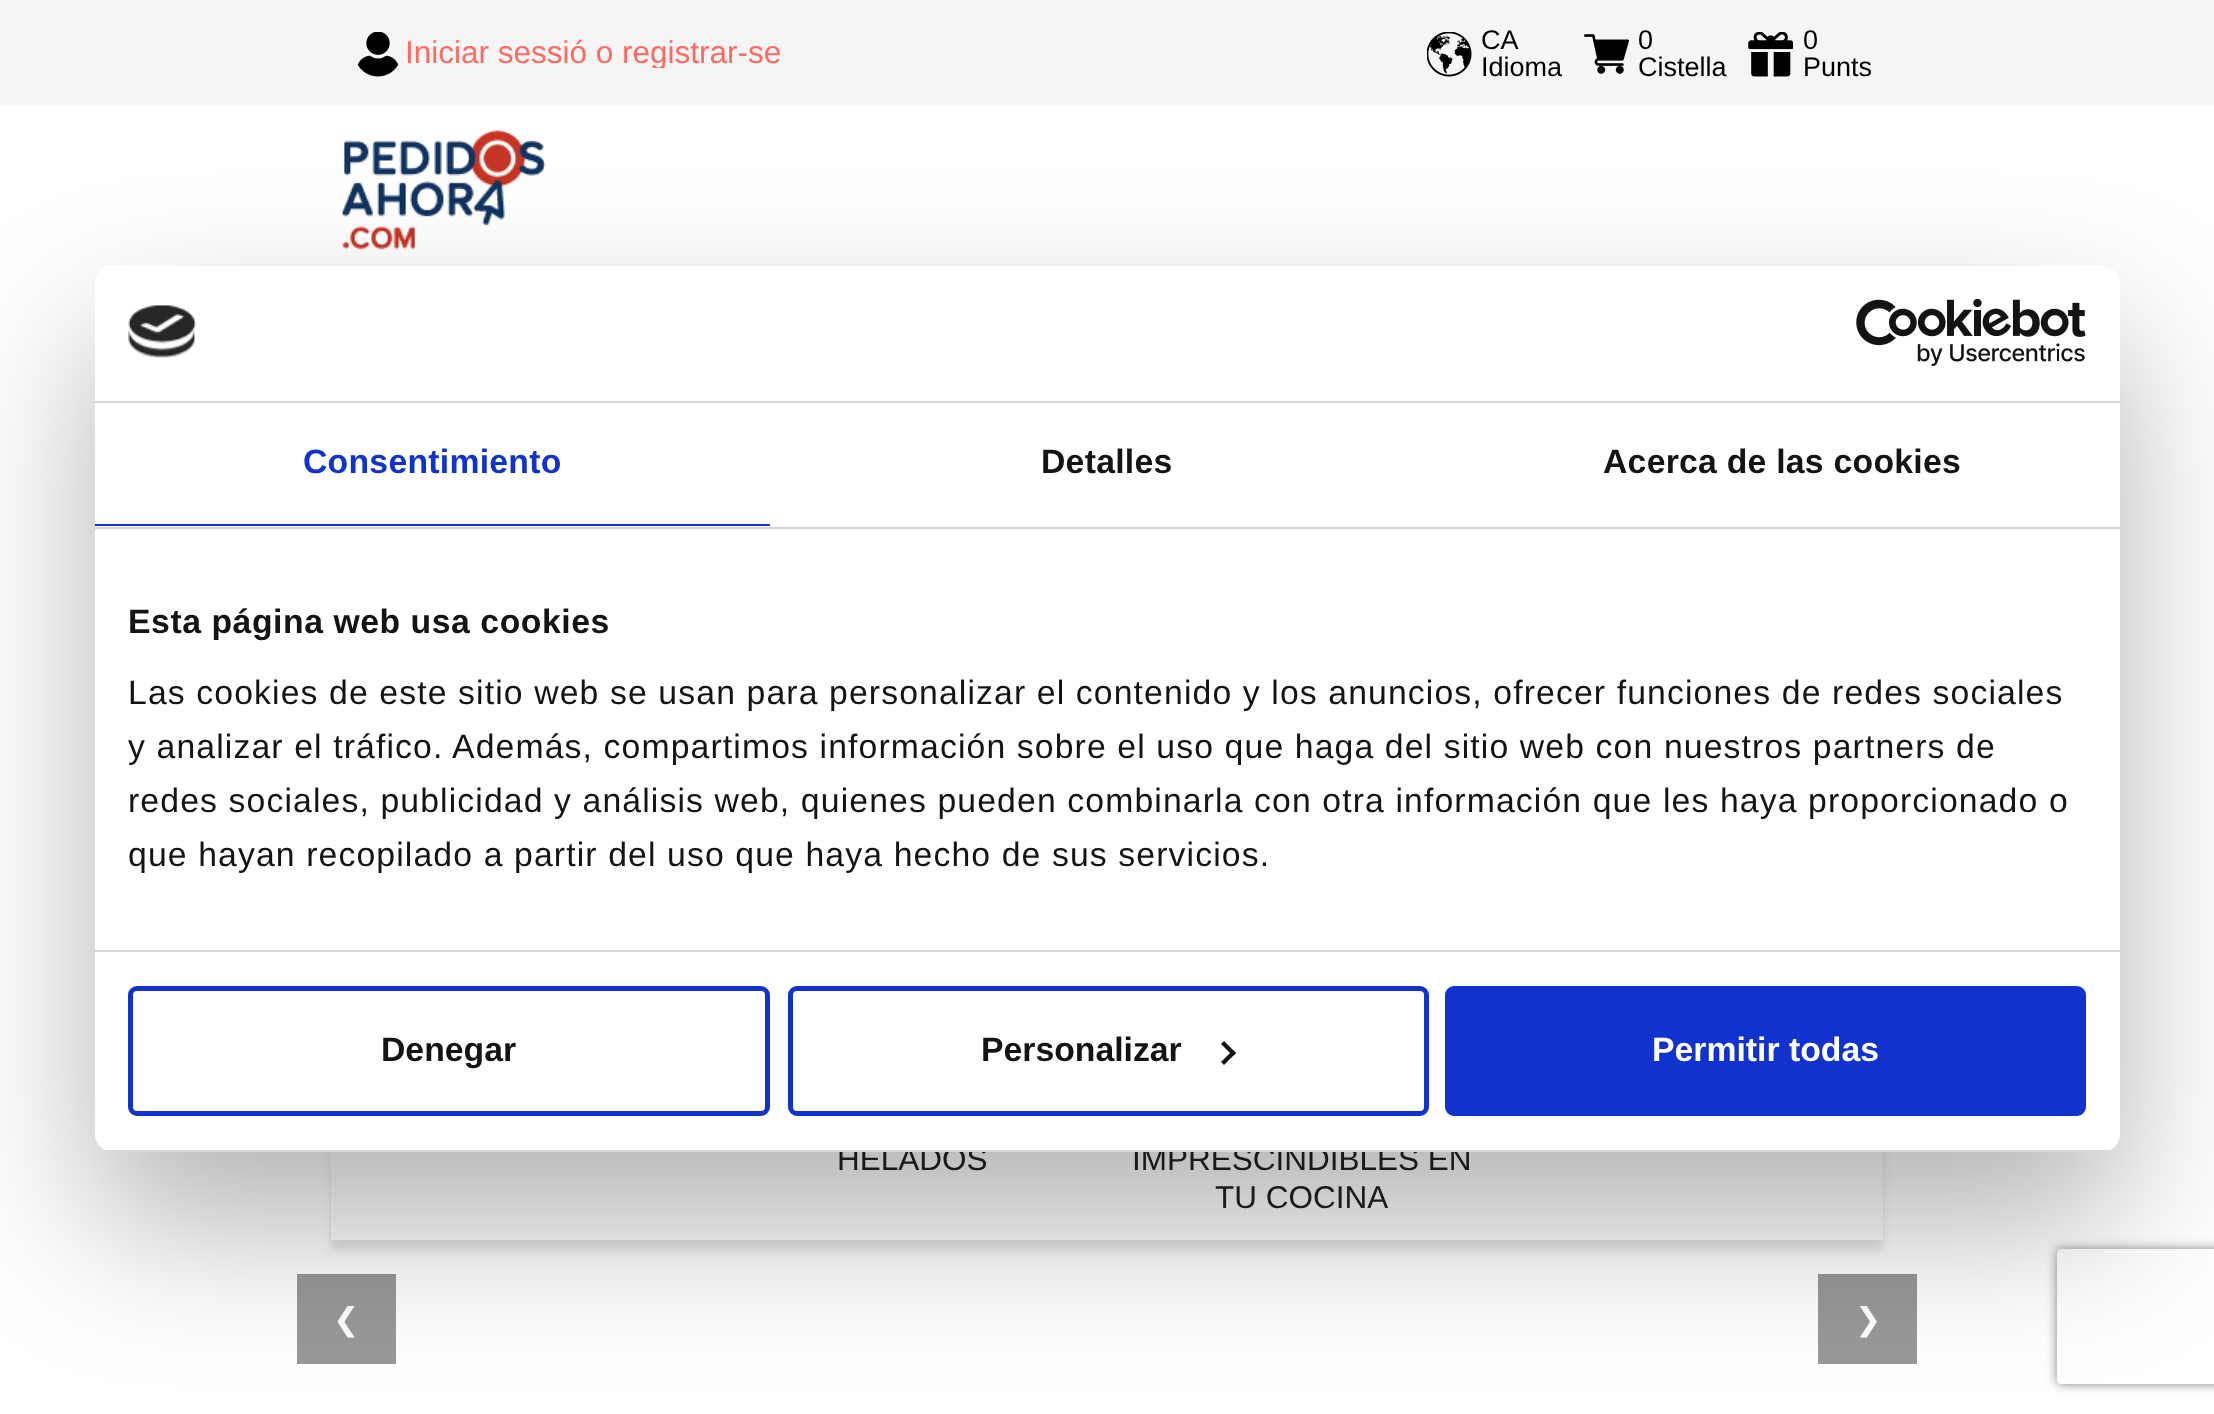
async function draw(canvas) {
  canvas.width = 2214
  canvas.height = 1414
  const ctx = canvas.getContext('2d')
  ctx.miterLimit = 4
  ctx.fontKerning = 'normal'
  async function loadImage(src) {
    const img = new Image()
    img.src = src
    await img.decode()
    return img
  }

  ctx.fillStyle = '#fff'
  ctx.fillRect(0, 0, 2214, 1414)
  ctx.fillStyle = '#f5f5f5'
  ctx.fillRect(0, 0, 2214, 106)
  ctx.drawImage(await loadImage('image0.png'), 357, 32, 42, 45)
  ctx.save()
  ctx.beginPath()
  ctx.rect(405, 36, 376, 32)
  ctx.clip()
  ctx.font = '31.5px Liberation Sans'
  ctx.fillStyle = '#ff6961'
  ctx.fillText('Iniciar sessió o registrar-se', 405, 63)
  ctx.restore()
  ctx.drawImage(await loadImage('image1.png'), 1427, 32, 45, 45)
  ctx.font = '27px Liberation Sans'
  ctx.fillStyle = '#000'
  ctx.fillText('CA', 1481, 49)
  ctx.fillText('Idioma', 1481, 76)
  ctx.drawImage(await loadImage('image2.png'), 1584, 34, 45, 40)
  ctx.fillText('0', 1638, 49)
  ctx.fillText('Cistella', 1638, 76)
  ctx.drawImage(await loadImage('image3.png'), 1748, 32, 45, 45)
  ctx.fillText('0', 1803, 49)
  ctx.fillText('Punts', 1803, 76)
  ctx.drawImage(await loadImage('image4.png'), 342, 130, 204, 120)
  ctx.fillStyle = '#0000001a'
  ctx.filter = 'blur(4.5px)'
  ctx.beginPath()
  ctx.rect(331, 797, 1552, 454)
  ctx.fill()
  ctx.filter = 'none'
  ctx.fillStyle = '#fff'
  ctx.fillRect(331, 1152, 1552, 88)
  ctx.font = '31.5px Liberation Sans'
  ctx.fillStyle = '#222'
  ctx.fillText('HELADOS', 837, 1170)
  ctx.fillText('IMPRESCINDIBLES EN', 1132, 1170)
  ctx.fillText('TU COCINA', 1215, 1208)
  ctx.fillStyle = '#999'
  ctx.fillRect(297, 1274, 99, 90)
  ctx.font = '31.5px DejaVu Sans'
  ctx.fillStyle = '#fff'
  ctx.fillText('❮', 333, 1330)
  ctx.fillStyle = '#999'
  ctx.fillRect(1818, 1274, 99, 90)
  ctx.fillStyle = '#fff'
  ctx.fillText('❯', 1855, 1330)
  ctx.fillStyle = '#0000004d'
  ctx.filter = 'blur(76.5px)'
  ctx.beginPath()
  ctx.roundRect(95, 338, 2025, 886, 18)
  ctx.fill()
  ctx.filter = 'none'
  ctx.fillStyle = '#fff'
  ctx.beginPath()
  ctx.roundRect(95, 266, 2025, 886, 18)
  ctx.fill()
  ctx.fillStyle = '#d6d6d6'
  ctx.fillRect(95, 401, 2025, 2)
  ctx.drawImage(await loadImage('image5.png'), 128, 305, 68, 53)
  ctx.drawImage(await loadImage('image6.png'), 1856, 299, 230, 67)
  ctx.fillRect(95, 527, 2025, 2)
  ctx.fillStyle = '#1032cf'
  ctx.fillRect(95, 524, 675, 2)
  ctx.letterSpacing = '0.25px'
  ctx.font = 'bold 33.75px Liberation Sans'
  ctx.fillText('Consentimiento', 303, 473)
  ctx.fillStyle = '#141414'
  ctx.fillText('Detalles', 1041, 473)
  ctx.fillText('Acerca de las cookies', 1603, 473)
  ctx.fillStyle = '#d6d6d6'
  ctx.fillRect(95, 950, 2025, 2)
  ctx.letterSpacing = '0.55px'
  ctx.fillStyle = '#141414'
  ctx.fillText('Esta página web usa cookies', 128, 633)
  ctx.letterSpacing = '1.12px'
  ctx.font = '33.75px Liberation Sans'
  ctx.fillText('Las cookies de este sitio web se usan para personalizar el contenido y los anuncios, ofrecer funciones de redes sociales', 128, 704)
  ctx.fillText('y analizar el tráfico. Además, compartimos información sobre el uso que haga del sitio web con nuestros partners de', 128, 758)
  ctx.fillText('redes sociales, publicidad y análisis web, quienes pueden combinarla con otra información que les haya proporcionado o', 128, 812)
  ctx.fillText('que hayan recopilado a partir del uso que haya hecho de sus servicios.', 128, 866)
  ctx.save()
  ctx.beginPath()
  ctx.roundRect(95, 266, 2025, 886, 18)
  ctx.clip()
  ctx.fillStyle = '#d6d6d6'
  ctx.fillRect(105, 1150, 2005, 2)
  ctx.restore()
  ctx.beginPath()
  ctx.roundRect(130.5, 988.5, 637, 125, 6.5)
  ctx.strokeStyle = '#1032cf'
  ctx.lineWidth = 5
  ctx.stroke()
  ctx.letterSpacing = '0px'
  ctx.font = 'bold 33.75px Liberation Sans'
  ctx.fillText('Denegar', 381, 1061)
  ctx.beginPath()
  ctx.roundRect(790.5, 988.5, 636, 125, 6.5)
  ctx.stroke()
  ctx.fillText('Personalizar', 981, 1061)
  ctx.beginPath()
  ctx.moveTo(1224, 1041)
  ctx.lineTo(1236, 1053)
  ctx.lineTo(1233, 1056)
  ctx.lineTo(1221, 1044)
  ctx.closePath()
  ctx.fill()
  ctx.beginPath()
  ctx.moveTo(1233, 1050)
  ctx.lineTo(1236, 1053)
  ctx.lineTo(1224, 1065)
  ctx.lineTo(1221, 1062)
  ctx.closePath()
  ctx.fill()
  ctx.fillStyle = '#1032cf'
  ctx.beginPath()
  ctx.roundRect(1447.5, 988.5, 636, 125, 6.5)
  ctx.fill()
  ctx.stroke()
  ctx.fillStyle = '#fff'
  ctx.fillText('Permitir todas', 1652, 1061)
  ctx.save()
  ctx.beginPath()
  ctx.moveTo(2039, 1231)
  ctx.lineTo(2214, 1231)
  ctx.lineTo(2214, 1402)
  ctx.lineTo(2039, 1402)
  ctx.closePath()
  ctx.moveTo(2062, 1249)
  ctx.lineTo(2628, 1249)
  ctx.bezierCurveTo(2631, 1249, 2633, 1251, 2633, 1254)
  ctx.lineTo(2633, 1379)
  ctx.bezierCurveTo(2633, 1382, 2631, 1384, 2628, 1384)
  ctx.lineTo(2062, 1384)
  ctx.bezierCurveTo(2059, 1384, 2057, 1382, 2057, 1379)
  ctx.lineTo(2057, 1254)
  ctx.bezierCurveTo(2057, 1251, 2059, 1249, 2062, 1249)
  ctx.closePath()
  ctx.clip('evenodd')
  ctx.fillStyle = '#808080'
  ctx.filter = 'blur(5.5px)'
  ctx.beginPath()
  ctx.roundRect(2057, 1249, 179, 135, 5)
  ctx.fill()
  ctx.filter = 'none'
  ctx.restore()
}

draw(document.querySelector('canvas'))
